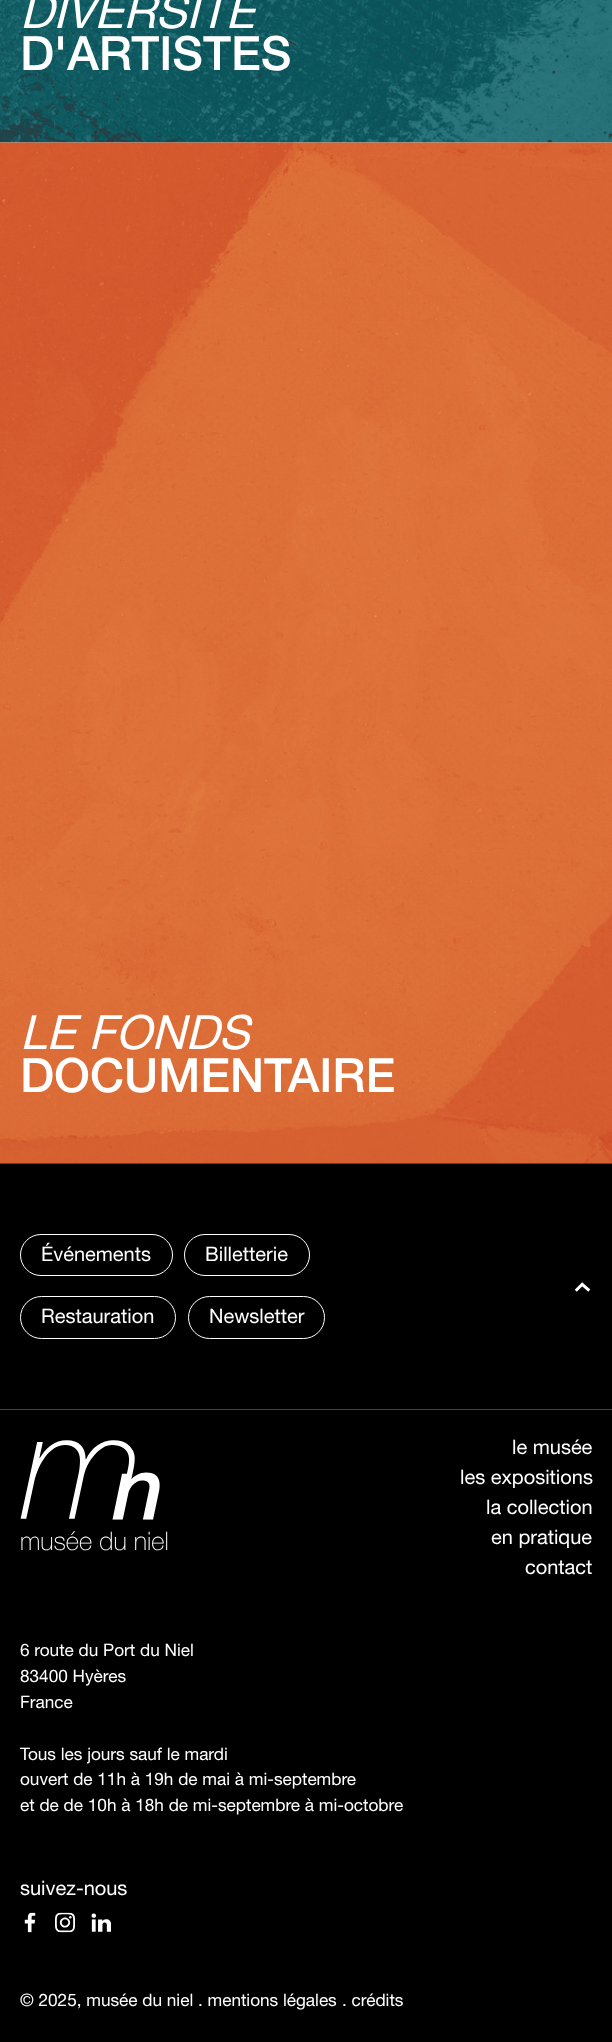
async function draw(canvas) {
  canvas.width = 612
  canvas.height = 2042
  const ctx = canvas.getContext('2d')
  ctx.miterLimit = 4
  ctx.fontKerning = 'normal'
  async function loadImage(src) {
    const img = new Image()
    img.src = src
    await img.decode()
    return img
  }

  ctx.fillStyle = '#fff'
  ctx.fillRect(0, 0, 612, 2042)
  ctx.drawImage(await loadImage('image0.png'), 0, 0, 612, 143)
  ctx.font = 'italic 47.25px Helvetica Neue'
  ctx.fillText('DIVERSITÉ', 20, 28)
  ctx.font = '500 47.25px Helvetica Neue'
  ctx.fillText('D\'ARTISTES', 20, 70)
  ctx.fillStyle = '#000'
  ctx.fillRect(0, 1163, 612, 879)
  ctx.drawImage(await loadImage('image1.png'), 0, 142, 612, 1022)
  ctx.font = 'italic 47.25px Helvetica Neue'
  ctx.fillStyle = '#fff'
  ctx.fillText('LE FONDS', 20, 1049)
  ctx.font = '500 47.25px Helvetica Neue'
  ctx.fillText('DOCUMENTAIRE', 20, 1092)
  ctx.beginPath()
  ctx.roundRect(20.5, 1234.5, 152, 41, 20.5)
  ctx.strokeStyle = '#fff'
  ctx.stroke()
  ctx.font = '20px Helvetica Neue'
  ctx.fillText('Événements', 41, 1261)
  ctx.beginPath()
  ctx.roundRect(184.5, 1234.5, 125, 41, 20.5)
  ctx.stroke()
  ctx.fillText('Billetterie', 205, 1261)
  ctx.beginPath()
  ctx.roundRect(20.5, 1296.5, 155, 42, 21)
  ctx.stroke()
  ctx.fillText('Restauration', 41, 1323)
  ctx.beginPath()
  ctx.roundRect(188.5, 1296.5, 136, 42, 21)
  ctx.stroke()
  ctx.fillText('Newsletter', 209, 1323)
  ctx.drawImage(await loadImage('image2.png'), 574, 1282, 17, 10)
  ctx.fillStyle = '#444'
  ctx.fillRect(0, 1409, 612, 1)
  ctx.drawImage(await loadImage('image3.png'), 20, 1440, 140, 80)
  ctx.font = '200 25.5px Helvetica Neue'
  ctx.fillStyle = '#fff'
  ctx.fillText('musée du niel', 20, 1550)
  ctx.font = '20px Helvetica Neue'
  ctx.fillText('le musée', 512, 1454)
  ctx.fillText('les expositions', 460, 1484)
  ctx.fillText('la collection', 486, 1514)
  ctx.fillText('en pratique', 491, 1544)
  ctx.fillText('contact', 525, 1574)
  ctx.font = '17.2px Helvetica Neue'
  ctx.fillText('6 route du Port du Niel', 20, 1656)
  ctx.fillText('83400 Hyères', 20, 1682)
  ctx.fillText('France', 20, 1708)
  ctx.fillText('Tous les jours sauf le mardi', 20, 1760)
  ctx.fillText('ouvert de 11h à 19h de mai à mi-septembre', 20, 1785)
  ctx.fillText('et de de 10h à 18h de mi-septembre à mi-octobre', 20, 1811)
  ctx.font = '20px Helvetica Neue'
  ctx.fillText('suivez-nous', 20, 1895)
  ctx.drawImage(await loadImage('image4.png'), 24, 1912, 12, 21)
  ctx.drawImage(await loadImage('image5.png'), 55, 1912, 20, 21)
  ctx.drawImage(await loadImage('image6.png'), 91, 1913, 20, 19)
  ctx.font = '17.2px Helvetica Neue'
  ctx.fillText('© 2025, musée du niel . mentions légales', 20, 2006)
  ctx.fillText('. crédits', 342, 2006)
}

draw(document.querySelector('canvas'))
